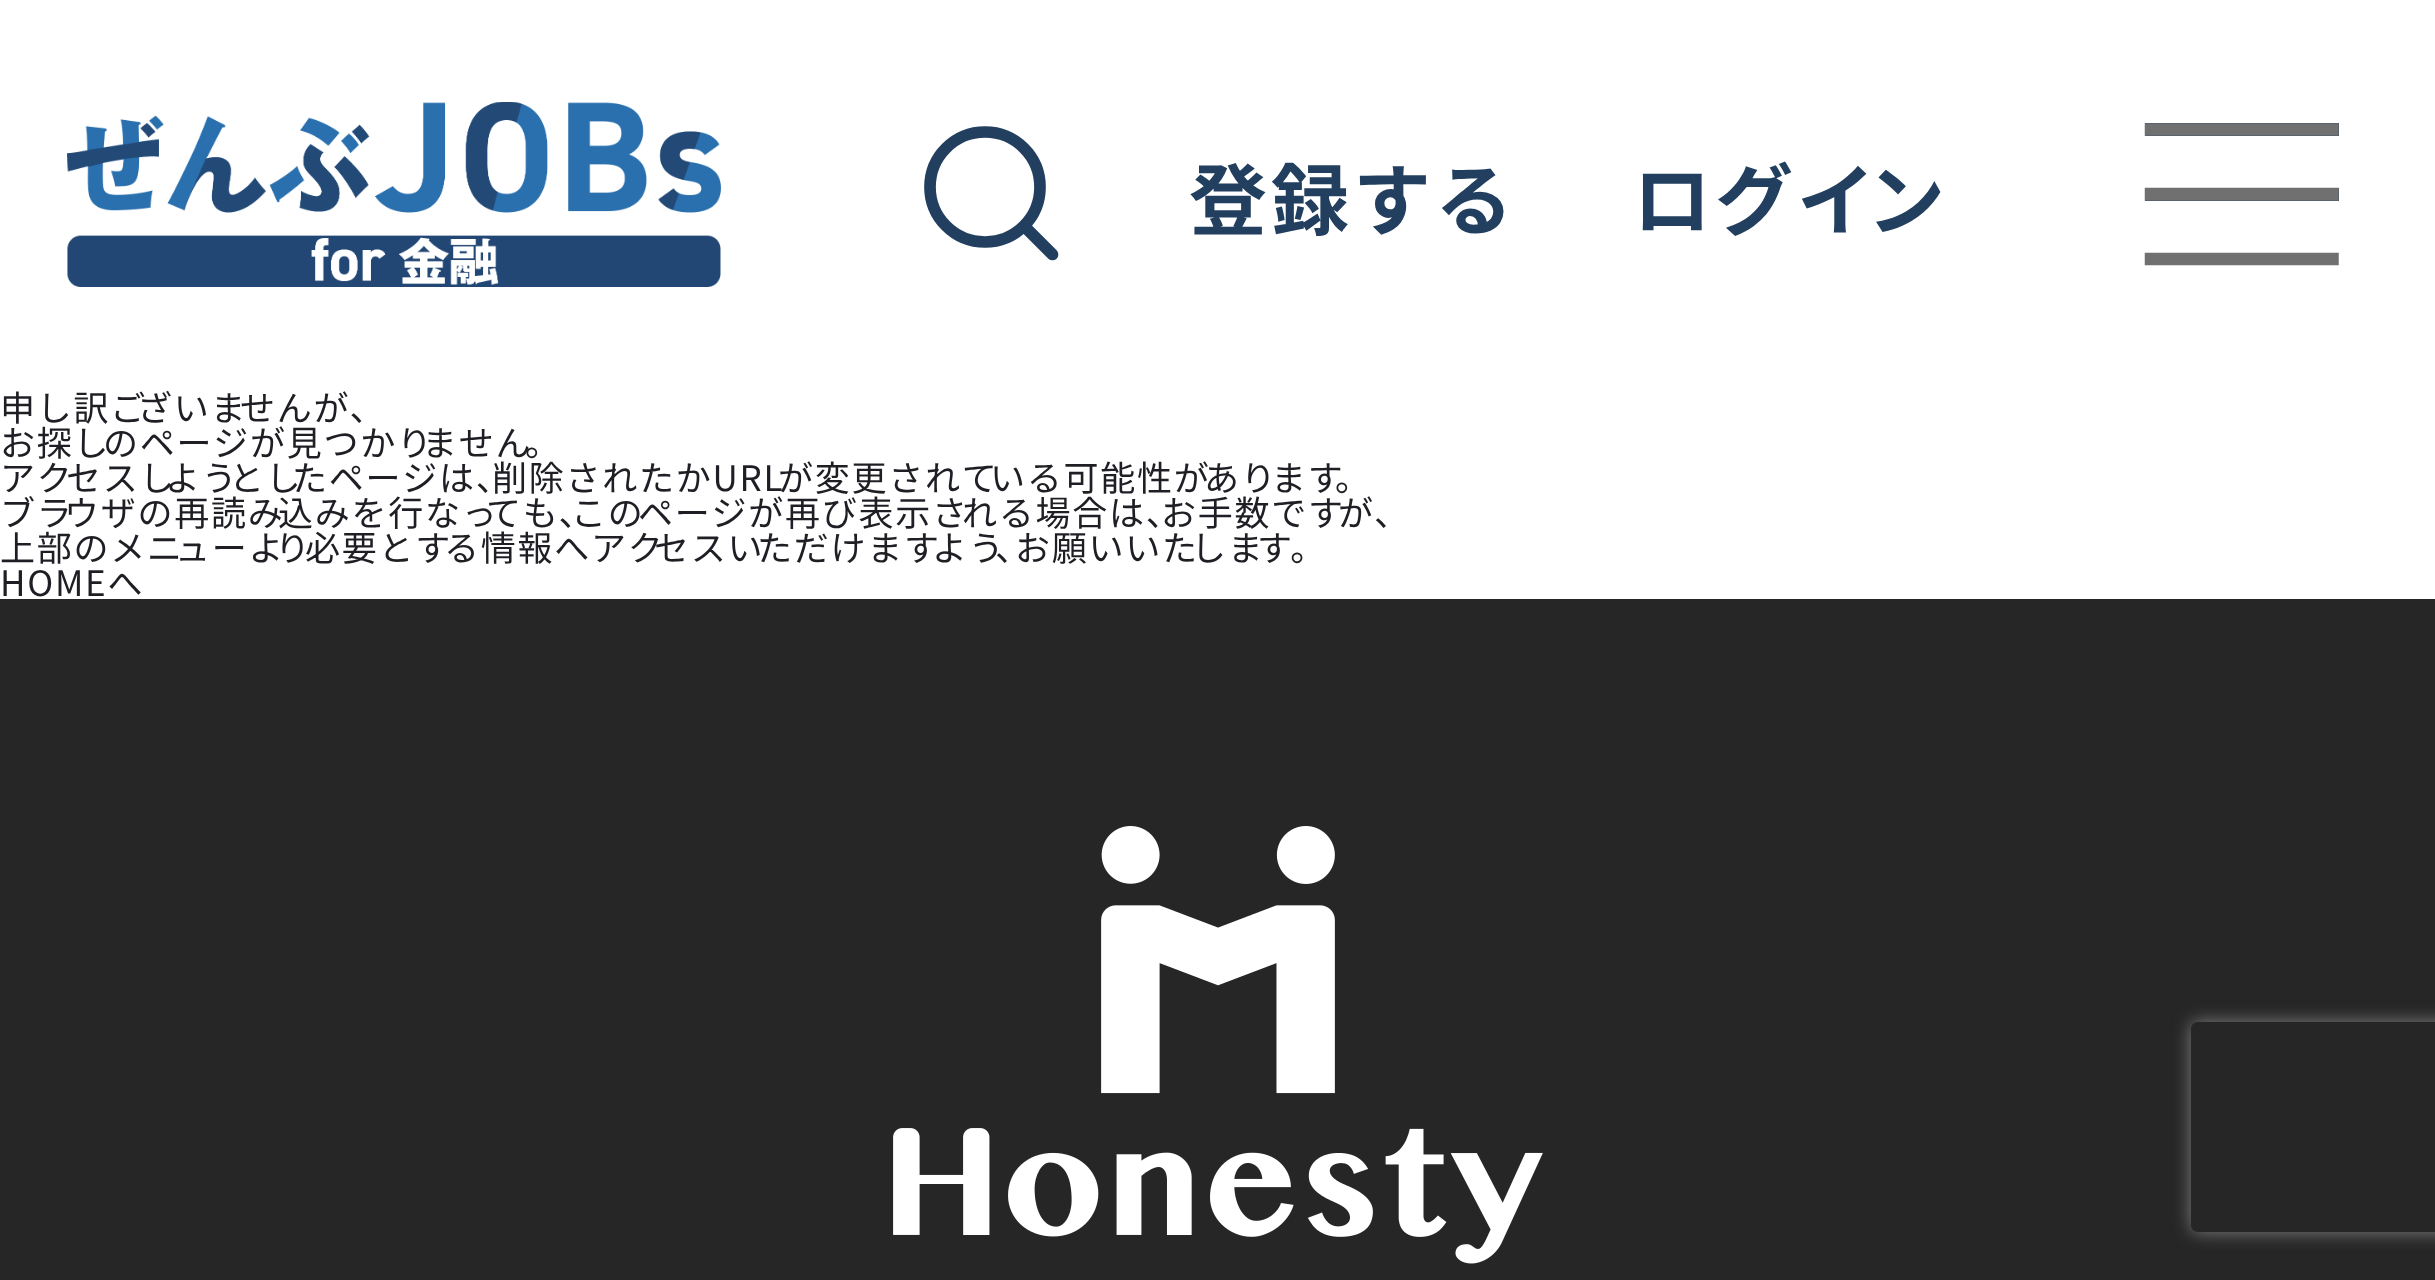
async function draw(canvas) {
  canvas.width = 2435
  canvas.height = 1280
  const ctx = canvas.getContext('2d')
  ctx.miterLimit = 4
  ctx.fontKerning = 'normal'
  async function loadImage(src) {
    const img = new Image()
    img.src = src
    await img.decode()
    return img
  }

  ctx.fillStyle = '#fff'
  ctx.fillRect(0, 0, 2435, 1280)
  ctx.drawImage(await loadImage('image0.png'), 67, 102, 654, 185)
  ctx.beginPath()
  ctx.moveTo(930, 187)
  ctx.bezierCurveTo(930, 156.5, 954.5, 132, 985, 132)
  ctx.bezierCurveTo(1015.5, 132, 1040, 156.5, 1040, 187)
  ctx.bezierCurveTo(1040, 217.5, 1015.5, 242, 985, 242)
  ctx.bezierCurveTo(954.5, 242, 930, 217.5, 930, 187)
  ctx.closePath()
  ctx.strokeStyle = '#223f5f'
  ctx.lineWidth = 11.7
  ctx.lineCap = 'round'
  ctx.lineJoin = 'round'
  ctx.stroke()
  ctx.beginPath()
  ctx.moveTo(1052.5, 254.5)
  ctx.lineTo(1028, 230)
  ctx.stroke()
  ctx.letterSpacing = '4px'
  ctx.font = '100 78px Noto Sans JP'
  ctx.fillStyle = '#223f5f'
  ctx.fillText('登録する', 1189, 229)
  ctx.fillText('ログイ', 1633, 229)
  ctx.fillText('ン', 1867, 229)
  ctx.fillRect(2145, 123, 194, 13)
  ctx.beginPath()
  ctx.moveTo(2148, 126.5)
  ctx.lineTo(2335.5, 126.5)
  ctx.lineTo(2335.5, 132.5)
  ctx.lineTo(2148, 132.5)
  ctx.closePath()
  ctx.strokeStyle = '#707070'
  ctx.lineWidth = 6.5
  ctx.lineCap = 'butt'
  ctx.lineJoin = 'miter'
  ctx.stroke()
  ctx.fillRect(2145, 188, 194, 13)
  ctx.beginPath()
  ctx.moveTo(2148, 191)
  ctx.lineTo(2335.5, 191)
  ctx.lineTo(2335.5, 197.5)
  ctx.lineTo(2148, 197.5)
  ctx.closePath()
  ctx.stroke()
  ctx.beginPath()
  ctx.moveTo(2148, 256)
  ctx.lineTo(2335.5, 256)
  ctx.lineTo(2335.5, 262)
  ctx.lineTo(2148, 262)
  ctx.closePath()
  ctx.stroke()
  ctx.letterSpacing = '1.75px'
  ctx.font = '100 35px "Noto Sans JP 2"'
  ctx.fillStyle = '#1e1e24'
  ctx.fillText('申し訳ご', 0, 421)
  ctx.fillText('ざいま', 137, 421)
  ctx.fillText('せんが、', 240, 421)
  ctx.fillText('お探し', 0, 456)
  ctx.fillText('のページが見つかり', 103, 456)
  ctx.fillText('ません', 422, 456)
  ctx.fillText('。', 525, 456)
  ctx.fillText('アク', 0, 491)
  ctx.fillText('セスし', 66, 491)
  ctx.fillText('よう', 165, 491)
  ctx.fillText('とし', 229, 491)
  ctx.fillText('たページは、', 292, 491)
  ctx.fillText('削除されたかURL', 492, 491)
  ctx.fillText('が変更されて', 778, 491)
  ctx.fillText('いる可能性が', 990, 491)
  ctx.fillText('あり', 1204, 491)
  ctx.fillText('ます', 1271, 491)
  ctx.fillText('。', 1335, 491)
  ctx.fillText('ブラ', 0, 526)
  ctx.fillText('ウザの再読み', 64, 526)
  ctx.fillText('込みを行なっ', 278, 526)
  ctx.fillText('ても、', 486, 526)
  ctx.fillText('この', 571, 526)
  ctx.fillText('ページが再び表示さ', 638, 526)
  ctx.fillText('れる場合は、', 962, 526)
  ctx.fillText('お手数です', 1161, 526)
  ctx.fillText('が、', 1338, 526)
  ctx.fillText('上部のメニ', 0, 561)
  ctx.fillText('ューよ', 175, 561)
  ctx.fillText('り', 275, 561)
  ctx.fillText('必要とす', 305, 561)
  ctx.fillText('る情報へアク', 444, 561)
  ctx.fillText('セスい', 654, 561)
  ctx.fillText('ただけます', 757, 561)
  ctx.fillText('よう', 932, 561)
  ctx.fillText('、', 995, 561)
  ctx.fillText('お願いいた', 1015, 561)
  ctx.fillText('しま', 1191, 561)
  ctx.fillText('す。', 1257, 561)
  ctx.fillText('HOMEへ', 0, 596)
  ctx.fillStyle = '#262626'
  ctx.fillRect(0, 599, 2435, 681)
  ctx.drawImage(await loadImage('image1.png'), 893, 826, 650, 438)
  ctx.save()
  ctx.beginPath()
  ctx.moveTo(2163, 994)
  ctx.lineTo(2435, 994)
  ctx.lineTo(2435, 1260)
  ctx.lineTo(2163, 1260)
  ctx.closePath()
  ctx.moveTo(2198, 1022)
  ctx.lineTo(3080, 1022)
  ctx.bezierCurveTo(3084, 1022, 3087, 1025, 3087, 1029)
  ctx.lineTo(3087, 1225)
  ctx.bezierCurveTo(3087, 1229, 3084, 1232, 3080, 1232)
  ctx.lineTo(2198, 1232)
  ctx.bezierCurveTo(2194, 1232, 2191, 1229, 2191, 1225)
  ctx.lineTo(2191, 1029)
  ctx.bezierCurveTo(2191, 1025, 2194, 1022, 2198, 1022)
  ctx.closePath()
  ctx.clip('evenodd')
  ctx.fillStyle = '#808080'
  ctx.filter = 'blur(9px)'
  ctx.beginPath()
  ctx.roundRect(2191, 1022, 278, 210, 7)
  ctx.fill()
  ctx.filter = 'none'
  ctx.restore()
}

draw(document.querySelector('canvas'))
